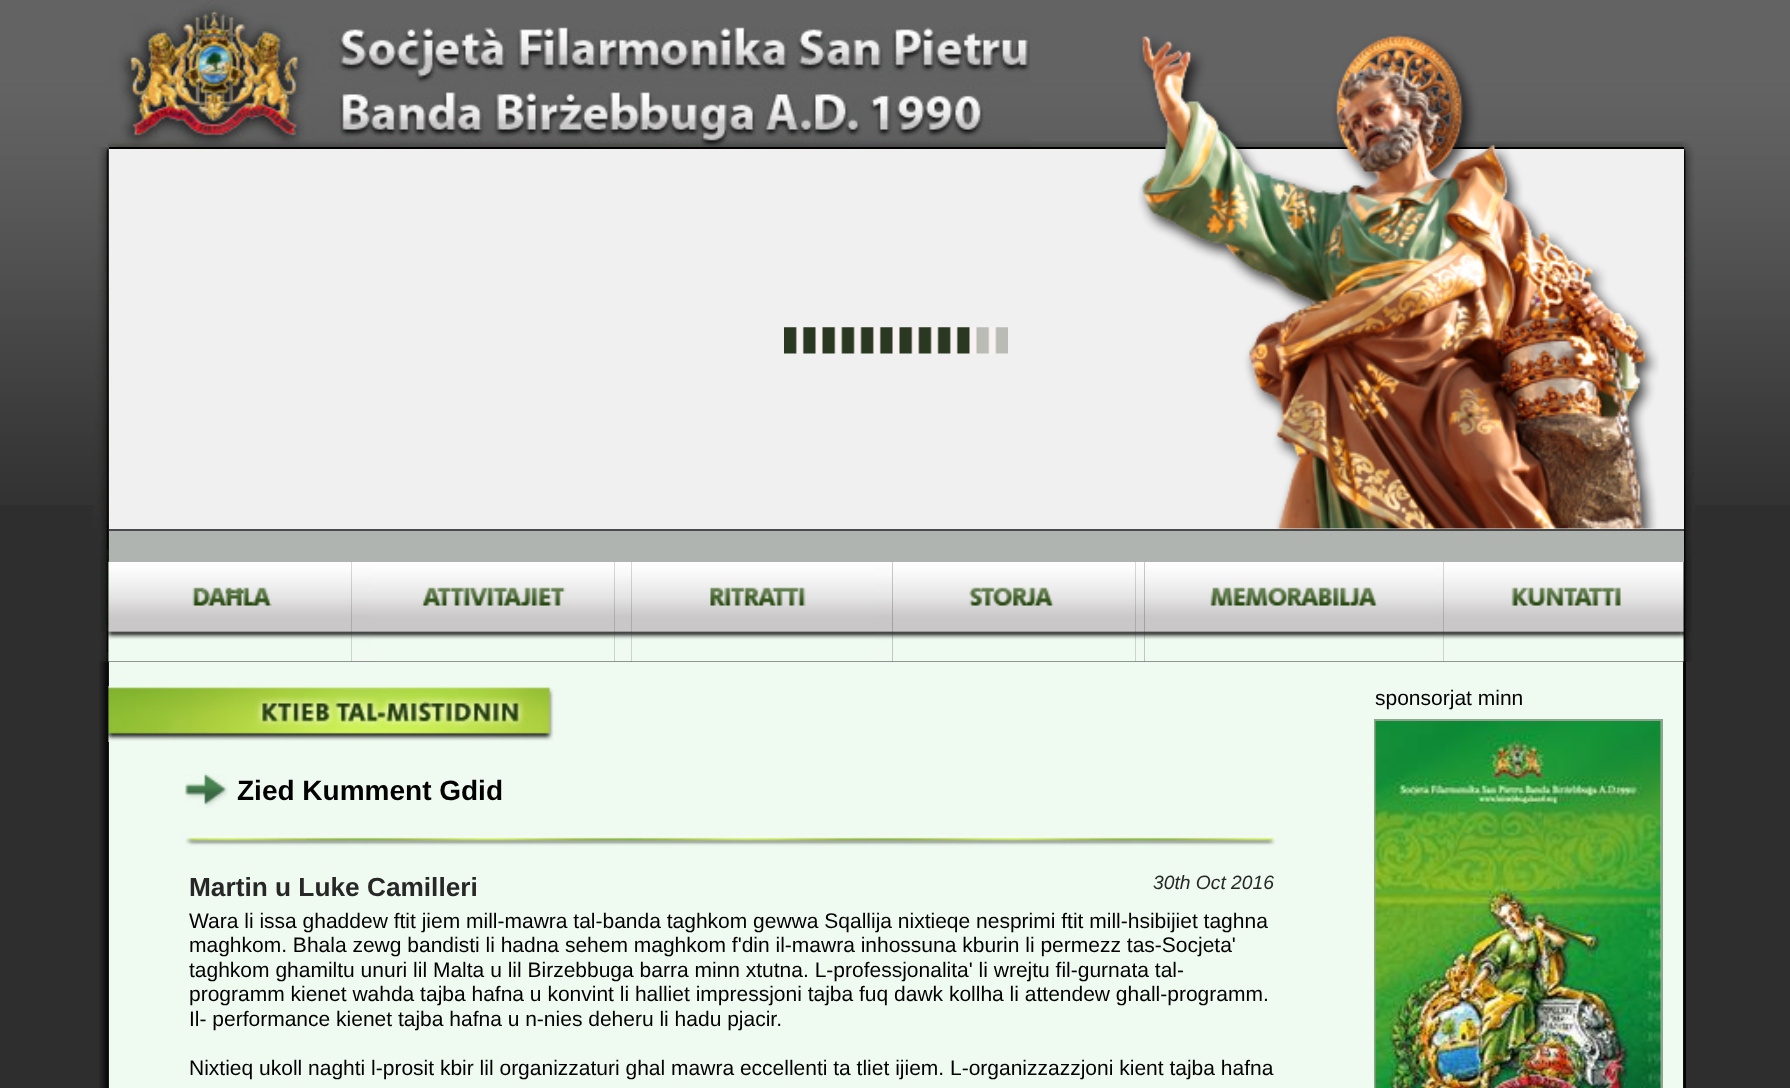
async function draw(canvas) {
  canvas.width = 1790
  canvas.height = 1088
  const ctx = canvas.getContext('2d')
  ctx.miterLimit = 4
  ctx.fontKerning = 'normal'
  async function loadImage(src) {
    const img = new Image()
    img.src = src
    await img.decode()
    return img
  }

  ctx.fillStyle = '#2e2e2e'
  ctx.fillRect(0, 0, 1790, 1088)
  ctx.drawImage(await loadImage('image0.png'), 0, 0, 1790, 505)
  ctx.drawImage(await loadImage('image1.png'), 108, 141, 1576, 6)
  ctx.drawImage(await loadImage('image2.png'), 109, 0, 921, 147)
  ctx.drawImage(await loadImage('image3.png'), 1683, 140, 7, 7)
  ctx.drawImage(await loadImage('image4.png'), 93, 147, 16, 382)
  ctx.drawImage(await loadImage('image7.png'), 1684, 147, 11, 382)
  ctx.drawImage(await loadImage('image20.png'), 1683, 528, 9, 134)
  ctx.fillStyle = '#f0f0f0'
  ctx.fillRect(109, 149, 1575, 380)
  ctx.fillStyle = '#020100'
  ctx.fillRect(109, 147, 1575, 2)
  ctx.drawImage(await loadImage('image5.png'), 1138, 34, 521, 495)
  ctx.drawImage(await loadImage('image6.png'), 784, 327, 224, 27)
  ctx.drawImage(await loadImage('image8.png'), 100, 528, 9, 134)
  ctx.drawImage(await loadImage('image21.png'), 99, 661, 10, 427)
  ctx.drawImage(await loadImage('image9.png'), 108, 561, 244, 101)
  ctx.fillStyle = '#afb4b0'
  ctx.fillRect(109, 531, 1575, 31)
  ctx.fillStyle = '#494a4c'
  ctx.fillRect(109, 529, 1575, 2)
  ctx.drawImage(await loadImage('image10.png'), 351, 562, 20, 100)
  ctx.drawImage(await loadImage('image11.png'), 371, 562, 244, 100)
  ctx.drawImage(await loadImage('image12.png'), 614, 562, 18, 100)
  ctx.drawImage(await loadImage('image13.png'), 631, 562, 244, 100)
  ctx.drawImage(await loadImage('image14.png'), 875, 562, 18, 100)
  ctx.drawImage(await loadImage('image15.png'), 892, 562, 244, 100)
  ctx.drawImage(await loadImage('image16.png'), 1135, 562, 10, 100)
  ctx.drawImage(await loadImage('image17.png'), 1144, 562, 291, 100)
  ctx.drawImage(await loadImage('image18.png'), 1435, 562, 9, 100)
  ctx.fillStyle = '#effbf0'
  ctx.fillRect(109, 662, 1575, 426)
  ctx.fillStyle = '#000200ed'
  ctx.fillRect(1683, 661, 3, 427)
  ctx.drawImage(await loadImage('image19.png'), 1443, 562, 241, 100)
  ctx.font = '21px Liberation Sans'
  ctx.fillStyle = '#000'
  ctx.fillText('sponsorjat minn', 1375, 705)
  ctx.strokeStyle = '#92a48e'
  ctx.lineWidth = 2
  ctx.strokeRect(1375, 720, 287, 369)
  ctx.drawImage(await loadImage('image22.png'), 1375, 721, 286, 367)
  ctx.drawImage(await loadImage('image23.png'), 108, 686, 449, 56)
  ctx.drawImage(await loadImage('image24.png'), 184, 773, 44, 35)
  ctx.font = 'bold 28px Liberation Sans'
  ctx.fillText('Zied Kumment Gdid', 237, 800)
  ctx.drawImage(await loadImage('image25.png'), 180, 833, 1096, 13)
  ctx.font = 'bold 26.25px Liberation Sans'
  ctx.fillStyle = '#272727'
  ctx.fillText('Martin u Luke Camilleri', 189, 896)
  ctx.font = 'italic 19.25px Liberation Sans'
  ctx.fillText('30th Oct 2016', 1153, 889)
  ctx.font = '21px Liberation Sans'
  ctx.fillStyle = '#000'
  ctx.fillText('Wara li issa ghaddew ftit jiem mill-mawra tal-banda taghkom gewwa Sqallija nixtieqe nesprimi ftit mill-hsibijiet taghna', 189, 928)
  ctx.fillText('maghkom. Bhala zewg bandisti li hadna sehem maghkom f\'din il-mawra inhossuna kburin li permezz tas-Socjeta\'', 189, 952)
  ctx.fillText('taghkom ghamiltu unuri lil Malta u lil Birzebbuga barra minn xtutna. L-professjonalita\' li wrejtu fil-gurnata tal-', 189, 977)
  ctx.fillText('programm kienet wahda tajba hafna u konvint li halliet impressjoni tajba fuq dawk kollha li attendew ghall-programm.', 189, 1001)
  ctx.fillText('Il- performance kienet tajba hafna u n-nies deheru li hadu pjacir.', 189, 1026)
  ctx.fillText('Nixtieq ukoll naghti l-prosit kbir lil organizzaturi ghal mawra eccellenti ta tliet ijiem. L-organizzazzjoni kient tajba hafna', 189, 1075)
}

draw(document.querySelector('canvas'))
